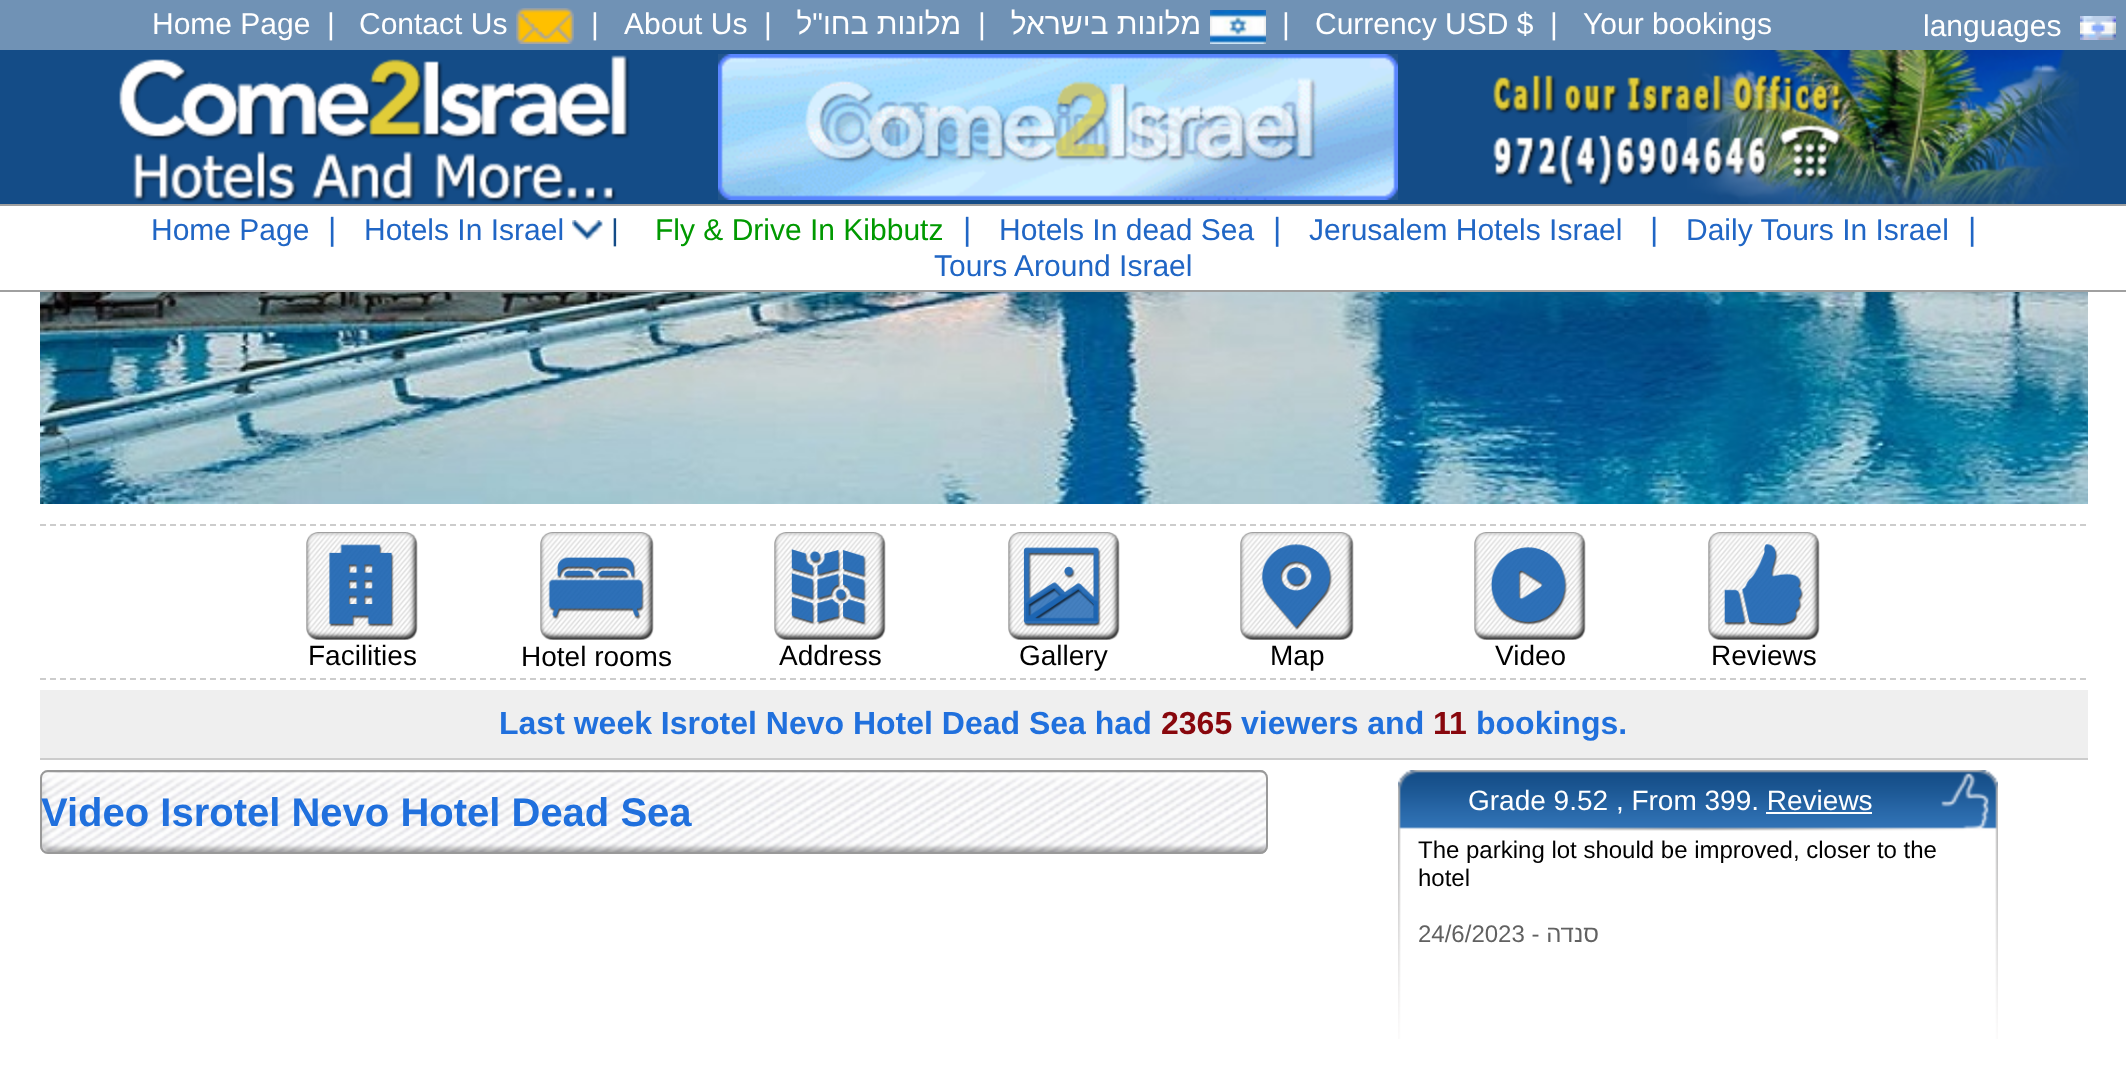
async function draw(canvas) {
  canvas.width = 2126
  canvas.height = 1082
  const ctx = canvas.getContext('2d')
  ctx.miterLimit = 4
  ctx.fontKerning = 'normal'
  async function loadImage(src) {
    const img = new Image()
    img.src = src
    await img.decode()
    return img
  }

  ctx.fillStyle = '#fff'
  ctx.fillRect(0, 0, 2126, 1082)
  ctx.fillStyle = '#7092b5'
  ctx.fillRect(0, 0, 2126, 50)
  ctx.font = '30px Liberation Sans'
  ctx.fillStyle = '#fff'
  ctx.fillText('Home Page', 152, 34)
  ctx.fillText('|', 327, 34)
  ctx.fillText('Contact Us', 359, 34)
  ctx.drawImage(await loadImage('image0.png'), 516, 8, 58, 36)
  ctx.fillText('|', 591, 34)
  ctx.fillText('About Us', 624, 34)
  ctx.fillText('|', 764, 34)
  ctx.direction = 'rtl'
  ctx.fillText('מלונות בחו"ל', 961, 34)
  ctx.direction = 'ltr'
  ctx.fillText('|', 978, 34)
  ctx.direction = 'rtl'
  ctx.fillText('מלונות בישראל', 1201, 34)
  ctx.drawImage(await loadImage('image1.png'), 1210, 10, 56, 34)
  ctx.direction = 'ltr'
  ctx.fillText('|', 1282, 34)
  ctx.fillText('Currency USD $', 1315, 34)
  ctx.fillText('|', 1550, 34)
  ctx.fillText('Your bookings', 1583, 34)
  ctx.fillText('languages', 1923, 36)
  ctx.drawImage(await loadImage('image2.png'), 2080, 16, 36, 24)
  ctx.fillStyle = '#144c87'
  ctx.fillRect(0, 50, 2126, 154)
  ctx.drawImage(await loadImage('image3.png'), 1687, 50, 392, 154)
  ctx.drawImage(await loadImage('image4.png'), 119, 55, 511, 148)
  ctx.drawImage(await loadImage('image5.png'), 718, 54, 680, 146)
  ctx.drawImage(await loadImage('image6.png'), 1493, 75, 351, 113)
  ctx.fillStyle = '#a0a0a0'
  ctx.fillRect(0, 204, 2126, 2)
  ctx.fillRect(0, 290, 2126, 2)
  ctx.fillStyle = '#2066c5'
  ctx.fillText('Home Page', 151, 240)
  ctx.font = '32px Liberation Sans'
  ctx.fillText('|', 328, 240)
  ctx.font = '30px Liberation Sans'
  ctx.fillText('Hotels In Israel', 364, 240)
  ctx.drawImage(await loadImage('image7.png'), 572, 220, 31, 20)
  ctx.fillStyle = '#144c87'
  ctx.fillText('|', 611, 240)
  ctx.fillStyle = '#090'
  ctx.fillText('Fly & Drive In Kibbutz', 655, 240)
  ctx.font = '32px Liberation Sans'
  ctx.fillStyle = '#2066c5'
  ctx.fillText('|', 963, 240)
  ctx.font = '30px Liberation Sans'
  ctx.fillText('Hotels In dead Sea', 999, 240)
  ctx.font = '32px Liberation Sans'
  ctx.fillText('|', 1273, 240)
  ctx.font = '30px Liberation Sans'
  ctx.fillText('Jerusalem Hotels Israel', 1309, 240)
  ctx.font = '32px Liberation Sans'
  ctx.fillText('|', 1650, 240)
  ctx.font = '30px Liberation Sans'
  ctx.fillText('Daily Tours In Israel', 1686, 240)
  ctx.font = '32px Liberation Sans'
  ctx.fillText('|', 1968, 240)
  ctx.font = '30px Liberation Sans'
  ctx.fillText('Tours Around Israel', 934, 276)
  ctx.drawImage(await loadImage('image8.png'), 40, 292, 2048, 212)
  ctx.beginPath()
  ctx.moveTo(40, 525)
  ctx.lineTo(2088, 525)
  ctx.strokeStyle = '#ccc'
  ctx.lineWidth = 2
  ctx.setLineDash([6, 4])
  ctx.stroke()
  ctx.beginPath()
  ctx.moveTo(40, 679)
  ctx.lineTo(2088, 679)
  ctx.stroke()
  ctx.drawImage(await loadImage('image9.png'), 306, 532, 112, 108)
  ctx.font = '28px Liberation Sans'
  ctx.fillStyle = '#000'
  ctx.fillText('Facilities', 308, 665)
  ctx.drawImage(await loadImage('image10.png'), 540, 532, 114, 108)
  ctx.fillText('Hotel rooms', 521, 666)
  ctx.drawImage(await loadImage('image11.png'), 774, 532, 112, 108)
  ctx.fillText('Address', 779, 665)
  ctx.drawImage(await loadImage('image12.png'), 1008, 532, 112, 108)
  ctx.fillText('Gallery', 1019, 665)
  ctx.drawImage(await loadImage('image13.png'), 1240, 532, 114, 108)
  ctx.fillText('Map', 1270, 665)
  ctx.drawImage(await loadImage('image14.png'), 1474, 532, 112, 108)
  ctx.fillText('Video', 1495, 665)
  ctx.drawImage(await loadImage('image15.png'), 1708, 532, 112, 108)
  ctx.fillText('Reviews', 1711, 665)
  ctx.fillStyle = '#efefef'
  ctx.fillRect(40, 690, 2048, 68)
  ctx.fillStyle = '#ccc'
  ctx.fillRect(40, 758, 2048, 2)
  ctx.font = 'bold 32px Liberation Sans'
  ctx.fillStyle = '#2070dd'
  ctx.fillText('Last week Isrotel Nevo Hotel Dead Sea had', 499, 734)
  ctx.fillStyle = '#88070d'
  ctx.fillText('2365', 1161, 734)
  ctx.fillStyle = '#2070dd'
  ctx.fillText('viewers and', 1241, 734)
  ctx.fillStyle = '#88070d'
  ctx.fillText('11', 1433, 734)
  ctx.fillStyle = '#2070dd'
  ctx.fillText('bookings.', 1476, 734)
  ctx.drawImage(await loadImage('image16.png'), 40, 770, 1228, 84)
  ctx.beginPath()
  ctx.roundRect(41, 771, 1226, 82, 7)
  ctx.strokeStyle = '#999'
  ctx.setLineDash([])
  ctx.stroke()
  ctx.font = 'bold 40px Liberation Sans'
  ctx.fillText('Video Isrotel Nevo Hotel Dead Sea', 41, 826)
  ctx.drawImage(await loadImage('image17.png'), 1398, 770, 600, 269)
  ctx.font = '28px Liberation Sans'
  ctx.fillStyle = '#fff'
  ctx.fillText('Grade 9.52 , From 399. Reviews', 1468, 810)
  ctx.fillRect(1766, 812, 106, 2)
  ctx.font = '24px Liberation Sans'
  ctx.fillStyle = '#000'
  ctx.fillText('The parking lot should be improved, closer to the', 1418, 858)
  ctx.fillText('hotel', 1418, 886)
  ctx.fillStyle = '#616161'
  ctx.fillText('24/6/2023', 1418, 942)
  ctx.direction = 'rtl'
  ctx.fillText('סנדה -', 1599, 942)
}

draw(document.querySelector('canvas'))
